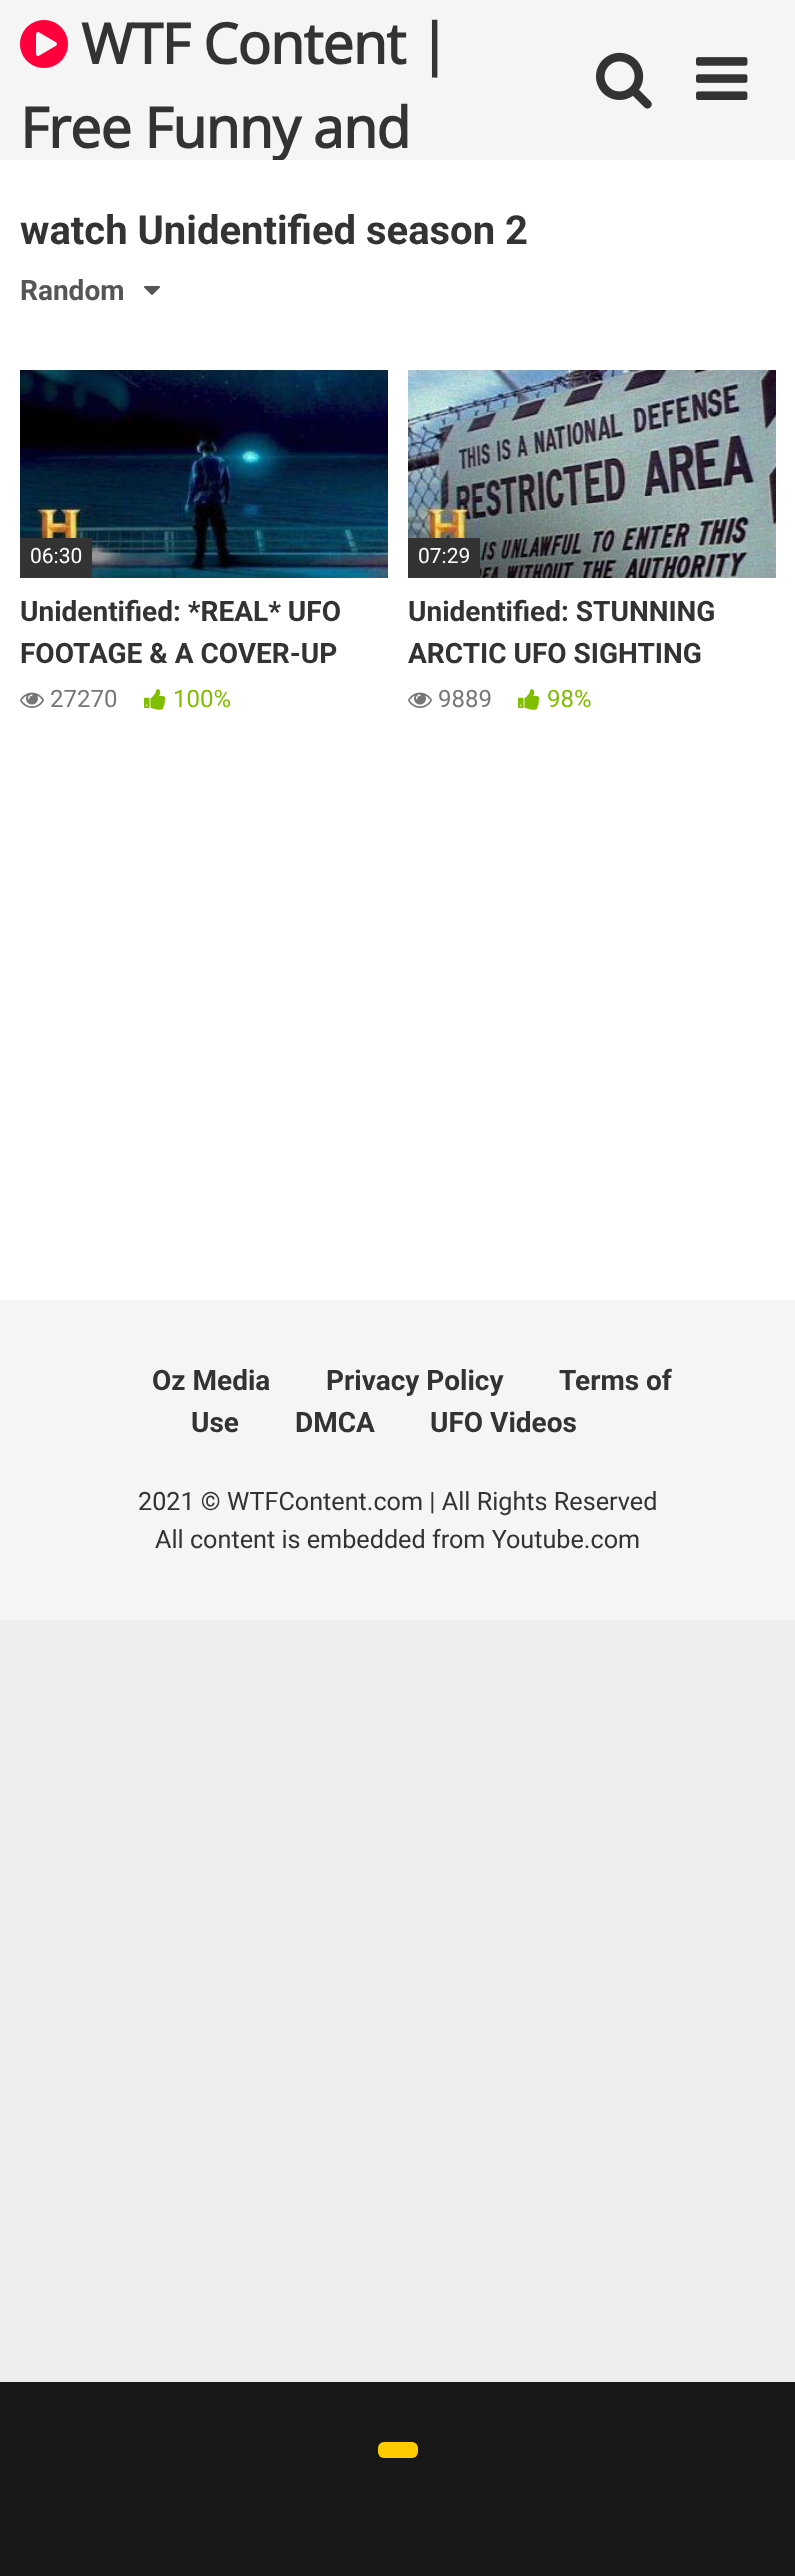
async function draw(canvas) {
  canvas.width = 795
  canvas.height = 2576
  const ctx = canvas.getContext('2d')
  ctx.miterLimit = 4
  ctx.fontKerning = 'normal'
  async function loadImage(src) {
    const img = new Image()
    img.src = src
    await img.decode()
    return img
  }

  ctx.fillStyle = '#eee'
  ctx.fillRect(0, 0, 795, 2576)
  ctx.fillStyle = '#f5f5f5'
  ctx.fillRect(0, 0, 795, 160)
  ctx.drawImage(await loadImage('image0.png'), 20, 20, 48, 48)
  ctx.letterSpacing = '-1px'
  ctx.font = 'bold 56px Open Sans'
  ctx.fillStyle = '#333'
  ctx.fillText('WTF Content |', 81, 64)
  ctx.fillText('Free Funny and', 20, 148)
  ctx.drawImage(await loadImage('image1.png'), 596, 52, 56, 57)
  ctx.drawImage(await loadImage('image2.png'), 696, 57, 52, 43)
  ctx.fillStyle = '#f5f5f5'
  ctx.fillRect(0, 1300, 795, 320)
  ctx.fillStyle = '#fff'
  ctx.fillRect(0, 160, 795, 1140)
  ctx.letterSpacing = '0px'
  ctx.font = 'bold 40px Roboto'
  ctx.fillStyle = '#333'
  ctx.fillText('watch Unidentified season 2', 20, 244)
  ctx.font = 'bold 28px Roboto'
  ctx.fillStyle = '#555'
  ctx.fillText('Random', 20, 300)
  ctx.drawImage(await loadImage('image3.png'), 144, 286, 16, 9)
  ctx.drawImage(await loadImage('image4.png'), 20, 370, 368, 208)
  ctx.fillStyle = '#333'
  ctx.fillRect(20, 538, 72, 40)
  ctx.font = '21px Roboto'
  ctx.fillStyle = '#fff'
  ctx.fillText('06:30', 30, 563)
  ctx.font = 'bold 28px Roboto'
  ctx.fillStyle = '#333'
  ctx.fillText('Unidentified: *REAL* UFO', 20, 621)
  ctx.fillText('FOOTAGE & A COVER-UP', 20, 663)
  ctx.drawImage(await loadImage('image5.png'), 20, 692, 24, 16)
  ctx.font = '24px Roboto'
  ctx.fillStyle = '#777'
  ctx.fillText('27270', 50, 707)
  ctx.drawImage(await loadImage('image6.png'), 144, 689, 22, 21)
  ctx.fillStyle = '#81bd00'
  ctx.fillText('100%', 173, 707)
  ctx.drawImage(await loadImage('image7.png'), 408, 370, 368, 208)
  ctx.fillStyle = '#333'
  ctx.fillRect(408, 538, 72, 40)
  ctx.font = '21px Roboto'
  ctx.fillStyle = '#fff'
  ctx.fillText('07:29', 418, 563)
  ctx.font = 'bold 28px Roboto'
  ctx.fillStyle = '#333'
  ctx.fillText('Unidentified: STUNNING', 408, 621)
  ctx.fillText('ARCTIC UFO SIGHTING', 408, 663)
  ctx.drawImage(await loadImage('image5.png'), 408, 692, 24, 16)
  ctx.font = '24px Roboto'
  ctx.fillStyle = '#777'
  ctx.fillText('9889', 438, 707)
  ctx.drawImage(await loadImage('image6.png'), 518, 689, 22, 21)
  ctx.fillStyle = '#81bd00'
  ctx.fillText('98%', 547, 707)
  ctx.font = 'bold 28px Roboto'
  ctx.fillStyle = '#333'
  ctx.fillText('Oz Media', 152, 1390)
  ctx.fillText('Privacy Policy', 326, 1390)
  ctx.fillText('Terms of', 559, 1390)
  ctx.fillText('Use', 191, 1432)
  ctx.fillText('DMCA', 295, 1432)
  ctx.fillText('UFO Videos', 430, 1432)
  ctx.font = '25.2px Roboto'
  ctx.fillText('2021 © WTFContent.com | All Rights Reserved', 138, 1510)
  ctx.fillText('All content is embedded from Youtube.com', 155, 1548)
  ctx.fillStyle = '#181818'
  ctx.fillRect(0, 2382, 795, 194)
  ctx.fillStyle = '#fc0'
  ctx.beginPath()
  ctx.roundRect(378, 2442, 40, 16, 6)
  ctx.fill()
}

draw(document.querySelector('canvas'))
